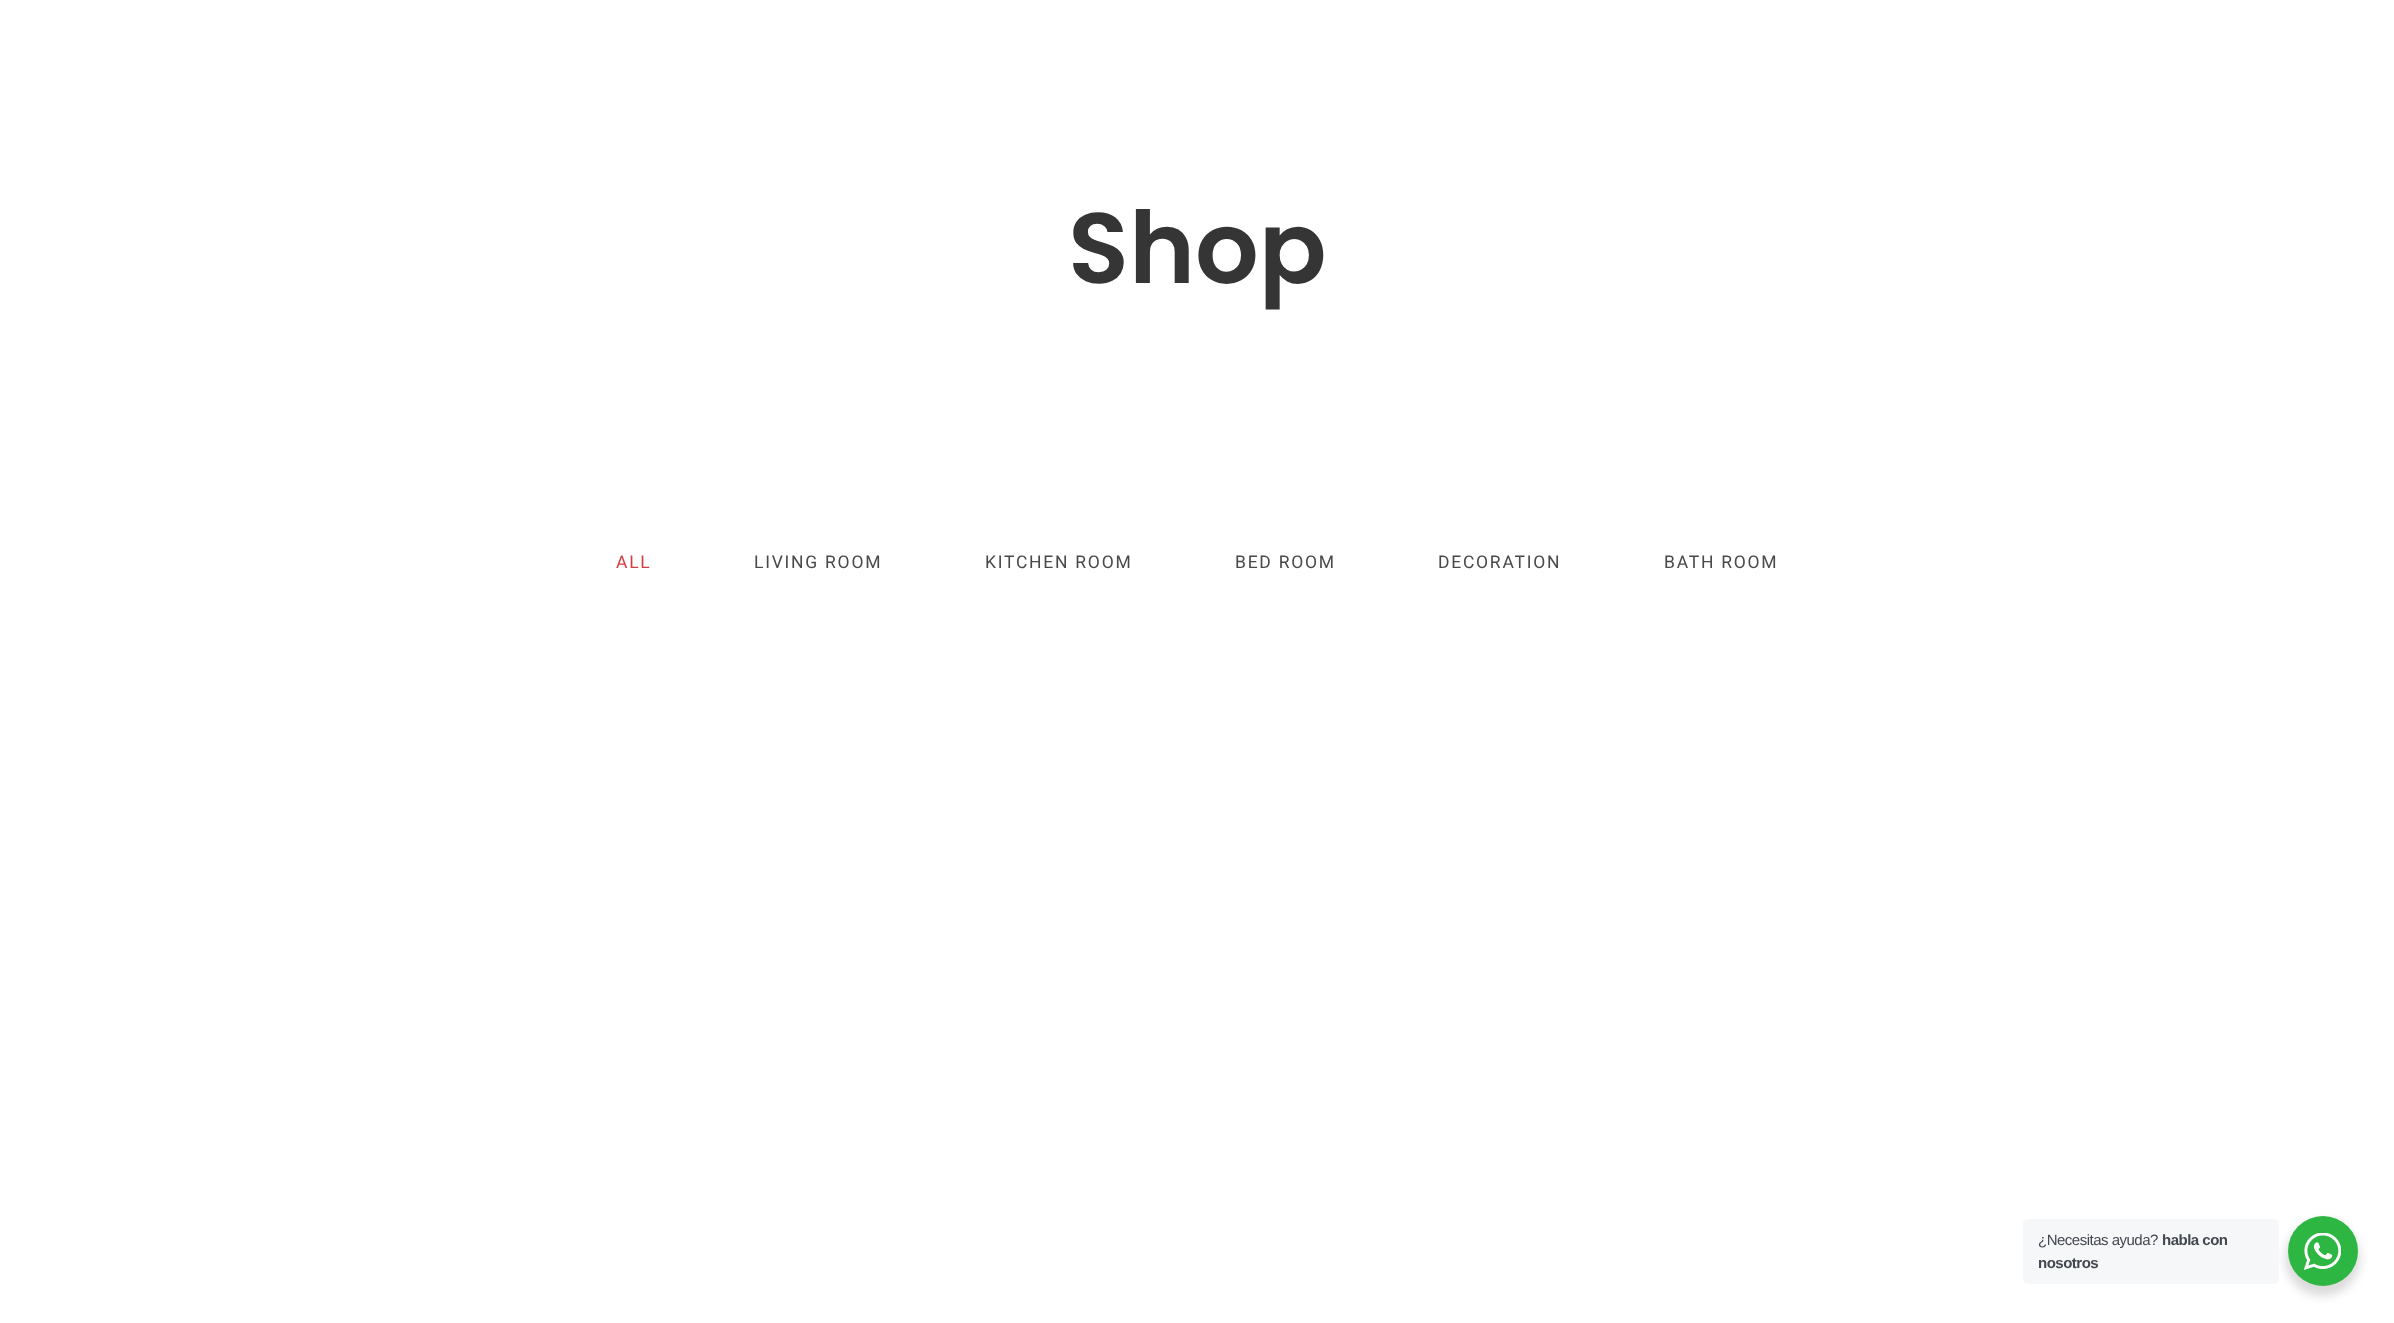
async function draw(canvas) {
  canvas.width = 2394
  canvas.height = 1323
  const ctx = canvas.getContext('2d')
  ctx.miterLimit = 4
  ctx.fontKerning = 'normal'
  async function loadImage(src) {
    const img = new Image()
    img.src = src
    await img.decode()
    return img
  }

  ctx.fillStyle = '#fff'
  ctx.fillRect(0, 0, 2394, 1323)
  ctx.font = '600 100px Poppins'
  ctx.fillStyle = '#353535'
  ctx.fillText('Shop', 1068, 283)
  ctx.letterSpacing = '1.75px'
  ctx.font = '17.5px Roboto'
  ctx.fillStyle = '#d63e3e'
  ctx.fillText('ALL', 616, 568)
  ctx.fillStyle = '#494949'
  ctx.fillText('LIVING ROOM', 754, 568)
  ctx.fillText('KITCHEN ROOM', 985, 568)
  ctx.fillText('BED ROOM', 1235, 568)
  ctx.fillText('DECORATION', 1438, 568)
  ctx.fillText('BATH ROOM', 1664, 568)
  ctx.fillStyle = '#00000024'
  ctx.filter = 'blur(5px)'
  ctx.beginPath()
  ctx.roundRect(2285, 1221, 75, 75, 37.5)
  ctx.fill()
  ctx.filter = 'none'
  ctx.fillStyle = '#f5f7f9'
  ctx.beginPath()
  ctx.roundRect(2023, 1219, 256, 65, 5)
  ctx.fill()
  ctx.letterSpacing = '-0.5px'
  ctx.font = '15px Liberation Sans'
  ctx.fillStyle = '#43474e'
  ctx.fillText('¿Necesitas ayuda?', 2038, 1245)
  ctx.font = 'bold 15px Liberation Sans'
  ctx.fillText('habla con', 2162, 1245)
  ctx.fillText('nosotros', 2038, 1268)
  ctx.fillStyle = '#2db742'
  ctx.beginPath()
  ctx.arc(2323, 1251, 35, 0, 2 * Math.PI)
  ctx.fill()
  ctx.drawImage(await loadImage('image0.png'), 2304, 1233, 37, 37)
}

draw(document.querySelector('canvas'))
